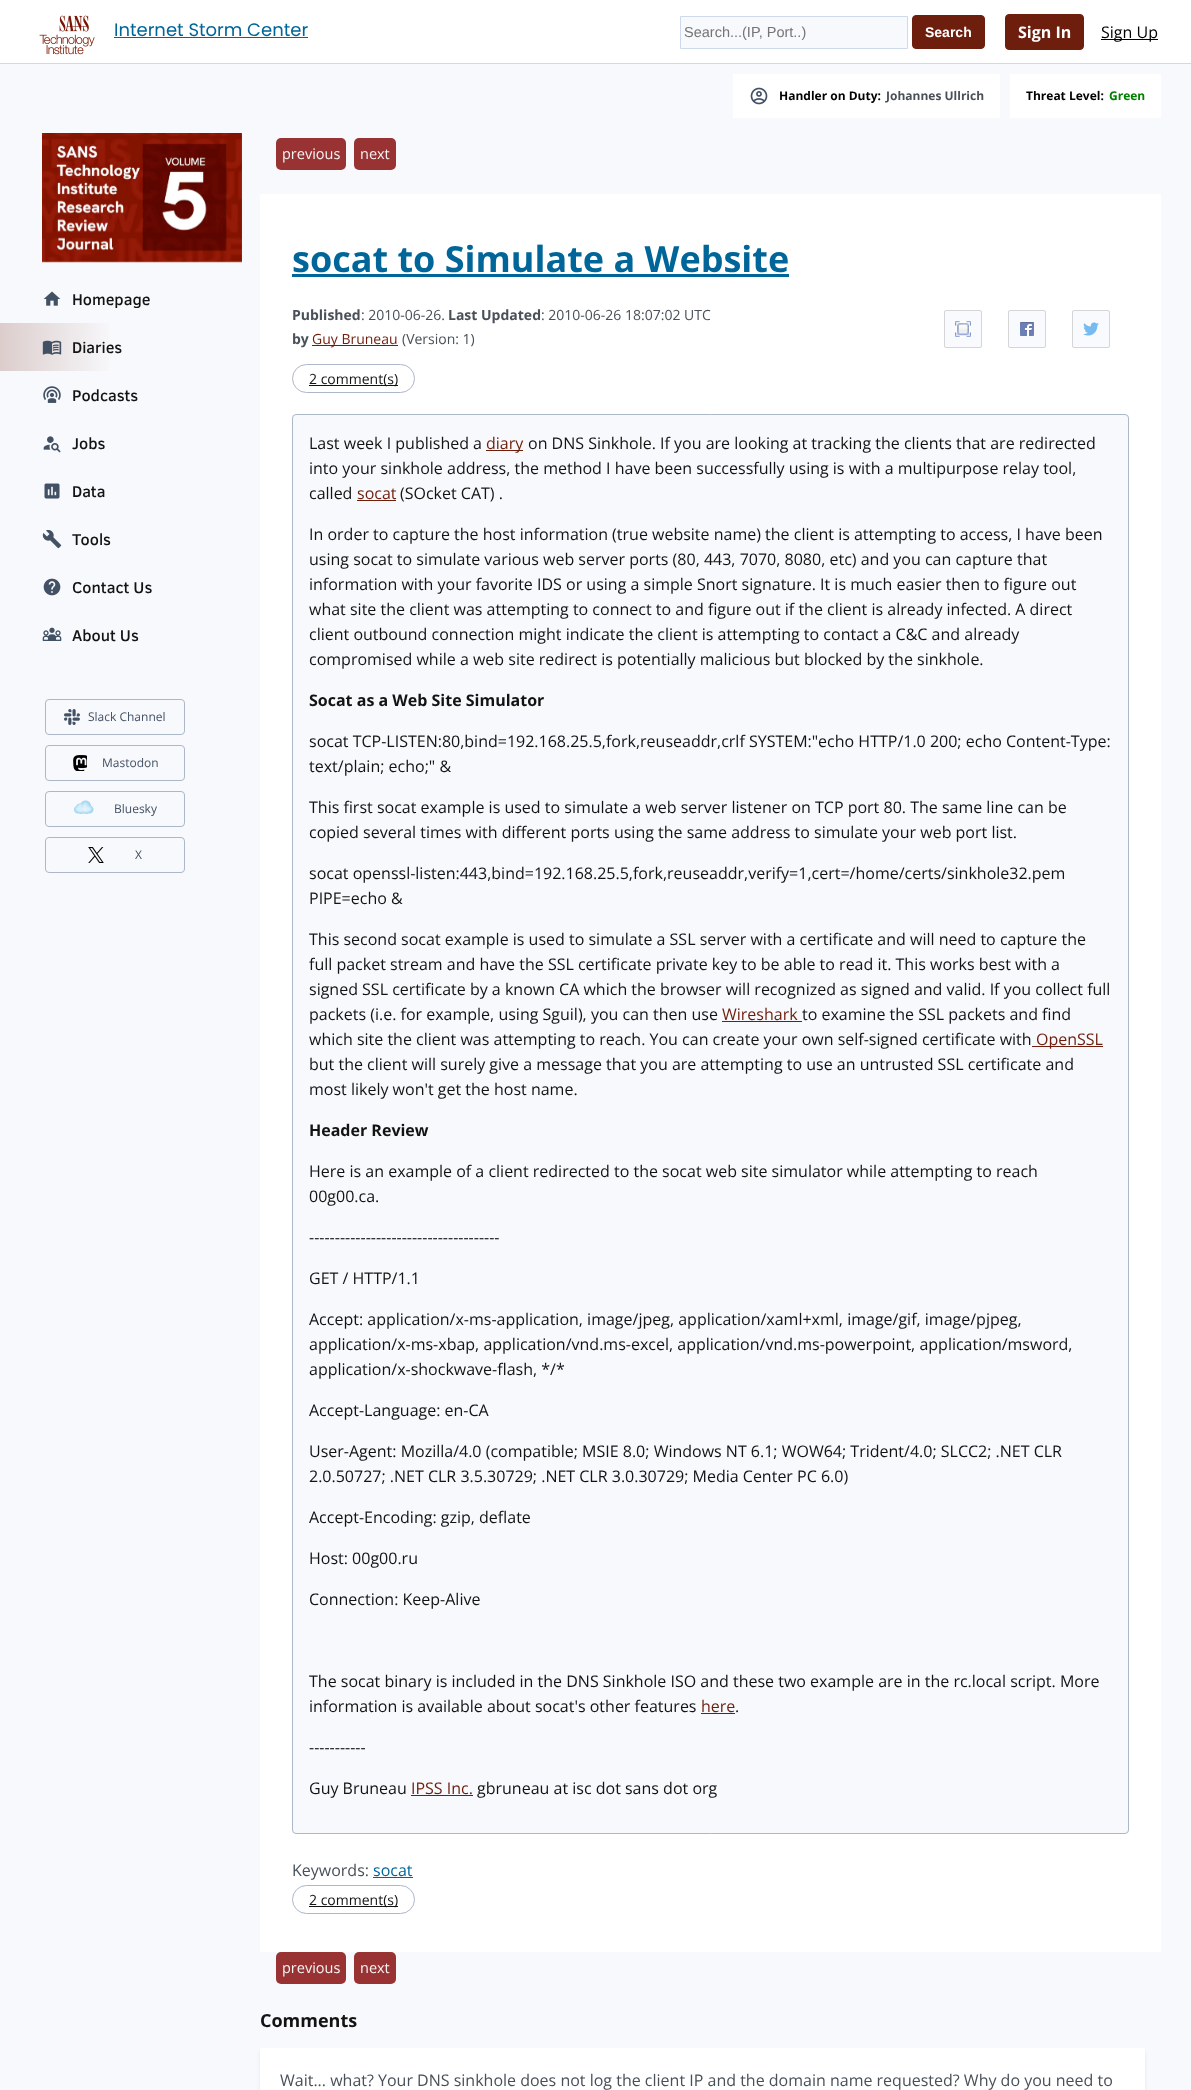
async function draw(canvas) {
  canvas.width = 1191
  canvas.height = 2090
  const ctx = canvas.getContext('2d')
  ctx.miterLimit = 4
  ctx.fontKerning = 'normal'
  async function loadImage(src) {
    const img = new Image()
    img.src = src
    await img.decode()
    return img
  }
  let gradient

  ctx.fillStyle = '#f8f9fc'
  ctx.fillRect(0, 0, 1191, 2090)
  ctx.fillStyle = '#fff'
  ctx.fillRect(0, 0, 1191, 63)
  ctx.fillStyle = '#cedaeb'
  ctx.fillRect(0, 63, 1191, 1)
  ctx.drawImage(await loadImage('image0.png'), 39, 15, 56, 40)
  ctx.font = '18px Poppins'
  ctx.fillStyle = '#069'
  ctx.fillText('Internet Storm Center', 114, 36)
  ctx.fillRect(114, 37, 194, 1)
  ctx.fillStyle = '#f7f9fc'
  ctx.beginPath()
  ctx.rect(680.5, 16.5, 227, 32)
  ctx.fill()
  ctx.strokeStyle = '#cedaeb'
  ctx.stroke()
  ctx.font = '14.5px Liberation Sans'
  ctx.fillStyle = '#757575'
  ctx.fillText('Search...(IP, Port..)', 684, 37)
  ctx.fillStyle = '#6e1e0c'
  ctx.beginPath()
  ctx.roundRect(912.5, 15.5, 72, 33, 3.5)
  ctx.fill()
  ctx.strokeStyle = '#6e1e0c'
  ctx.stroke()
  ctx.font = 'bold 14px Liberation Sans'
  ctx.fillStyle = '#fff'
  ctx.fillText('Search', 925, 37)
  ctx.fillStyle = '#6e1e0c'
  ctx.beginPath()
  ctx.roundRect(1005.5, 14.5, 78, 35, 3.5)
  ctx.fill()
  ctx.stroke()
  ctx.font = 'bold 16px Open Sans'
  ctx.fillStyle = '#fff'
  ctx.fillText('Sign In', 1018, 38)
  ctx.fillStyle = '#000'
  ctx.fillRect(1101, 39, 57, 1)
  ctx.font = '16px Open Sans'
  ctx.fillText('Sign Up', 1101, 38)
  ctx.drawImage(await loadImage('image1.png'), 42, 133, 200, 130)
  ctx.drawImage(await loadImage('image2.png'), 43, 291, 18, 15)
  ctx.font = '500 16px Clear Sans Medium'
  ctx.fillStyle = '#131313'
  ctx.fillText('Homepage', 72, 305)
  gradient = ctx.createLinearGradient(0, 347, 230, 347)
  gradient.addColorStop(0, '#dccdcc')
  gradient.addColorStop(0.5, '#f8f9fc')
  ctx.fillStyle = gradient
  ctx.fillRect(0, 323, 109, 48)
  ctx.drawImage(await loadImage('image3.png'), 42, 340, 20, 15)
  ctx.fillStyle = '#131313'
  ctx.fillText('Diaries', 72, 353)
  ctx.drawImage(await loadImage('image4.png'), 43, 386, 18, 17)
  ctx.fillText('Podcasts', 72, 401)
  ctx.drawImage(await loadImage('image5.png'), 43, 436, 18, 17)
  ctx.fillText('Jobs', 72, 449)
  ctx.drawImage(await loadImage('image6.png'), 44, 483, 16, 16)
  ctx.fillText('Data', 72, 497)
  ctx.drawImage(await loadImage('image7.png'), 42, 529, 20, 20)
  ctx.fillText('Tools', 72, 545)
  ctx.drawImage(await loadImage('image8.png'), 43, 578, 18, 18)
  ctx.fillText('Contact Us', 72, 593)
  ctx.drawImage(await loadImage('image9.png'), 42, 627, 20, 14)
  ctx.fillText('About Us', 72, 641)
  ctx.beginPath()
  ctx.roundRect(45.5, 699.5, 139, 35, 3.5)
  ctx.strokeStyle = '#acb7c8'
  ctx.stroke()
  ctx.drawImage(await loadImage('image10.png'), 64, 709, 16, 16)
  ctx.font = '12px Open Sans'
  ctx.fillStyle = '#435165'
  ctx.fillText('Slack Channel', 88, 721)
  ctx.beginPath()
  ctx.roundRect(45.5, 745.5, 139, 35, 3.5)
  ctx.stroke()
  ctx.drawImage(await loadImage('image11.png'), 73, 755, 14, 16)
  ctx.fillText('Mastodon', 102, 767)
  ctx.beginPath()
  ctx.roundRect(45.5, 791.5, 139, 35, 3.5)
  ctx.stroke()
  ctx.drawImage(await loadImage('image12.png'), 74, 800, 20, 14)
  ctx.fillText('Bluesky', 114, 813)
  ctx.beginPath()
  ctx.roundRect(45.5, 837.5, 139, 35, 3.5)
  ctx.stroke()
  ctx.drawImage(await loadImage('image13.png'), 88, 847, 16, 16)
  ctx.fillText('X', 135, 859)
  ctx.fillStyle = '#fff'
  ctx.fillRect(733, 74, 267, 44)
  ctx.drawImage(await loadImage('image14.png'), 750, 87, 18, 18)
  ctx.font = 'bold 12px Open Sans'
  ctx.fillStyle = '#000'
  ctx.fillText('Handler on Duty:', 779, 100)
  ctx.fillStyle = '#495058'
  ctx.fillText('Johannes Ullrich', 886, 100)
  ctx.fillStyle = '#fff'
  ctx.fillRect(1010, 74, 151, 44)
  ctx.fillStyle = '#000'
  ctx.fillText('Threat Level:', 1026, 100)
  ctx.fillStyle = '#008000'
  ctx.fillText('Green', 1109, 100)
  ctx.fillStyle = '#933'
  ctx.beginPath()
  ctx.roundRect(276, 138, 70, 32, 5)
  ctx.fill()
  ctx.font = '14.5px Open Sans'
  ctx.fillStyle = '#f4f4f4'
  ctx.fillText('previous', 282, 159)
  ctx.fillStyle = '#933'
  ctx.beginPath()
  ctx.roundRect(354, 138, 42, 32, 5)
  ctx.fill()
  ctx.fillStyle = '#f4f4f4'
  ctx.fillText('next', 360, 159)
  ctx.fillStyle = '#fff'
  ctx.fillRect(260, 194, 901, 1758)
  ctx.font = 'bold 36px Open Sans'
  ctx.fillStyle = '#069'
  ctx.fillText('socat to Simulate a Website', 292, 272)
  ctx.fillRect(292, 274, 497, 3)
  ctx.font = 'bold 14px Open Sans'
  ctx.fillStyle = '#495058'
  ctx.fillText('Published', 292, 320)
  ctx.font = '14px Open Sans'
  ctx.fillText(': 2010-06-26.', 361, 320)
  ctx.font = 'bold 14px Open Sans'
  ctx.fillText('Last Updated', 448, 320)
  ctx.font = '14px Open Sans'
  ctx.fillText(': 2010-06-26 18:07:02 UTC', 541, 320)
  ctx.font = 'bold 14px Open Sans'
  ctx.fillText('by', 292, 344)
  ctx.fillStyle = '#6e1e0c'
  ctx.fillRect(312, 345, 86, 1)
  ctx.font = '14px Open Sans'
  ctx.fillText('Guy Bruneau', 312, 344)
  ctx.fillStyle = '#495058'
  ctx.fillText('(Version: 1)', 402, 344)
  ctx.fillStyle = '#f9fafd'
  ctx.beginPath()
  ctx.roundRect(944, 310, 38, 38, 2)
  ctx.fill()
  ctx.drawImage(await loadImage('image15.png'), 955, 321, 16, 16)
  ctx.beginPath()
  ctx.roundRect(944.5, 310.5, 37, 37, 1.5)
  ctx.strokeStyle = '#d6d6d6'
  ctx.stroke()
  ctx.beginPath()
  ctx.roundRect(1008, 310, 38, 38, 2)
  ctx.fill()
  ctx.drawImage(await loadImage('image16.png'), 1020, 322, 14, 14)
  ctx.beginPath()
  ctx.roundRect(1008.5, 310.5, 37, 37, 1.5)
  ctx.stroke()
  ctx.beginPath()
  ctx.roundRect(1072, 310, 38, 38, 2)
  ctx.fill()
  ctx.drawImage(await loadImage('image17.png'), 1083, 322, 16, 14)
  ctx.beginPath()
  ctx.roundRect(1072.5, 310.5, 37, 37, 1.5)
  ctx.stroke()
  ctx.beginPath()
  ctx.roundRect(292.5, 364.5, 122, 28, 14)
  ctx.strokeStyle = '#acb7c8'
  ctx.stroke()
  ctx.fillStyle = '#131313'
  ctx.fillRect(309, 385, 89, 1)
  ctx.fillText('2 comment(s)', 309, 384)
  ctx.fillStyle = '#f7f9fc'
  ctx.beginPath()
  ctx.roundRect(292.5, 414.5, 836, 1419, 3.5)
  ctx.fill()
  ctx.stroke()
  ctx.font = '16px Open Sans'
  ctx.fillStyle = '#131313'
  ctx.fillText('Last week I published a', 309, 449)
  ctx.fillStyle = '#6e1e0c'
  ctx.fillRect(486, 450, 37, 1)
  ctx.fillText('diary', 486, 449)
  ctx.fillStyle = '#131313'
  ctx.fillText('on DNS Sinkhole. If you are looking at tracking the clients that are redirected', 528, 449)
  ctx.fillText('into your sinkhole address, the method I have been successfully using is with a multipurpose relay tool,', 309, 474)
  ctx.fillText('called', 309, 499)
  ctx.fillStyle = '#6e1e0c'
  ctx.fillText('socat', 357, 499)
  ctx.fillRect(357, 500, 39, 1)
  ctx.fillStyle = '#131313'
  ctx.fillText('(SOcket CAT) .', 400, 499)
  ctx.fillText('In order to capture the host information (true website name) the client is attempting to access, I have been', 309, 540)
  ctx.fillText('using socat to simulate various web server ports (80, 443, 7070, 8080, etc) and you can capture that', 309, 565)
  ctx.fillText('information with your favorite IDS or using a simple Snort signature. It is much easier then to figure out', 309, 590)
  ctx.fillText('what site the client was attempting to connect to and figure out if the client is already infected. A direct', 309, 615)
  ctx.fillText('client outbound connection might indicate the client is attempting to contact a C&C and already', 309, 640)
  ctx.fillText('compromised while a web site redirect is potentially malicious but blocked by the sinkhole.', 309, 665)
  ctx.font = 'bold 16px Open Sans'
  ctx.fillText('Socat as a Web Site Simulator', 309, 706)
  ctx.font = '16px Open Sans'
  ctx.fillText('socat TCP-LISTEN:80,bind=192.168.25.5,fork,reuseaddr,crlf SYSTEM:"echo HTTP/1.0 200; echo Content-Type:', 309, 747)
  ctx.fillText('text/plain; echo;" &', 309, 772)
  ctx.fillText('This first socat example is used to simulate a web server listener on TCP port 80. The same line can be', 309, 813)
  ctx.fillText('copied several times with different ports using the same address to simulate your web port list.', 309, 838)
  ctx.fillText('socat openssl-listen:443,bind=192.168.25.5,fork,reuseaddr,verify=1,cert=/home/certs/sinkhole32.pem', 309, 879)
  ctx.fillText('PIPE=echo &', 309, 904)
  ctx.fillText('This second socat example is used to simulate a SSL server with a certificate and will need to capture the', 309, 945)
  ctx.fillText('full packet stream and have the SSL certificate private key to be able to read it. This works best with a', 309, 970)
  ctx.fillText('signed SSL certificate by a known CA which the browser will recognized as signed and valid. If you collect full', 309, 995)
  ctx.fillText('packets (i.e. for example, using Sguil), you can then use', 309, 1020)
  ctx.fillStyle = '#6e1e0c'
  ctx.fillText('Wireshark', 722, 1020)
  ctx.fillRect(722, 1021, 80, 1)
  ctx.fillStyle = '#131313'
  ctx.fillText('to examine the SSL packets and find', 802, 1020)
  ctx.fillText('which site the client was attempting to reach. You can create your own self-signed certificate with', 309, 1045)
  ctx.fillStyle = '#6e1e0c'
  ctx.fillRect(1032, 1046, 71, 1)
  ctx.fillText('OpenSSL', 1036, 1045)
  ctx.fillStyle = '#131313'
  ctx.fillText('but the client will surely give a message that you are attempting to use an untrusted SSL certificate and', 309, 1070)
  ctx.fillText('most likely won\'t get the host name.', 309, 1095)
  ctx.font = 'bold 16px Open Sans'
  ctx.fillText('Header Review', 309, 1136)
  ctx.font = '16px Open Sans'
  ctx.fillText('Here is an example of a client redirected to the socat web site simulator while attempting to reach', 309, 1177)
  ctx.fillText('00g00.ca.', 309, 1202)
  ctx.fillText('-------------------------------------', 309, 1243)
  ctx.fillText('GET / HTTP/1.1', 309, 1284)
  ctx.fillText('Accept: application/x-ms-application, image/jpeg, application/xaml+xml, image/gif, image/pjpeg,', 309, 1325)
  ctx.fillText('application/x-ms-xbap, application/vnd.ms-excel, application/vnd.ms-powerpoint, application/msword,', 309, 1350)
  ctx.fillText('application/x-shockwave-flash, */*', 309, 1375)
  ctx.fillText('Accept-Language: en-CA', 309, 1416)
  ctx.fillText('User-Agent: Mozilla/4.0 (compatible; MSIE 8.0; Windows NT 6.1; WOW64; Trident/4.0; SLCC2; .NET CLR', 309, 1457)
  ctx.fillText('2.0.50727; .NET CLR 3.5.30729; .NET CLR 3.0.30729; Media Center PC 6.0)', 309, 1482)
  ctx.fillText('Accept-Encoding: gzip, deflate', 309, 1523)
  ctx.fillText('Host: 00g00.ru', 309, 1564)
  ctx.fillText('Connection: Keep-Alive', 309, 1605)
  ctx.fillText('The socat binary is included in the DNS Sinkhole ISO and these two example are in the rc.local script. More', 309, 1687)
  ctx.fillText('information is available about socat\'s other features', 309, 1712)
  ctx.fillStyle = '#6e1e0c'
  ctx.fillText('here', 701, 1712)
  ctx.fillRect(701, 1713, 34, 1)
  ctx.fillStyle = '#131313'
  ctx.fillText('.', 735, 1712)
  ctx.fillText('-----------', 309, 1753)
  ctx.fillText('Guy Bruneau', 309, 1794)
  ctx.fillStyle = '#6e1e0c'
  ctx.fillText('IPSS Inc.', 411, 1794)
  ctx.fillRect(411, 1795, 62, 1)
  ctx.fillStyle = '#131313'
  ctx.fillText('gbruneau at isc dot sans dot org', 477, 1794)
  ctx.fillStyle = '#495058'
  ctx.fillText('Keywords:', 292, 1876)
  ctx.fillStyle = '#069'
  ctx.fillText('socat', 373, 1876)
  ctx.fillRect(373, 1877, 40, 1)
  ctx.beginPath()
  ctx.roundRect(292.5, 1885.5, 122, 28, 14)
  ctx.stroke()
  ctx.fillStyle = '#131313'
  ctx.fillRect(309, 1906, 89, 1)
  ctx.font = '14px Open Sans'
  ctx.fillText('2 comment(s)', 309, 1905)
  ctx.fillStyle = '#933'
  ctx.beginPath()
  ctx.roundRect(276, 1952, 70, 32, 5)
  ctx.fill()
  ctx.font = '14.5px Open Sans'
  ctx.fillStyle = '#f4f4f4'
  ctx.fillText('previous', 282, 1973)
  ctx.fillStyle = '#933'
  ctx.beginPath()
  ctx.roundRect(354, 1952, 42, 32, 5)
  ctx.fill()
  ctx.fillStyle = '#f4f4f4'
  ctx.fillText('next', 360, 1973)
  ctx.font = 'bold 18px Open Sans'
  ctx.fillStyle = '#131313'
  ctx.fillText('Comments', 260, 2027)
  ctx.fillStyle = '#0044a81a'
  ctx.filter = 'blur(2px)'
  ctx.beginPath()
  ctx.rect(260, 2052, 885, 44)
  ctx.fill()
  ctx.filter = 'none'
  ctx.fillStyle = '#fff'
  ctx.fillRect(260, 2048, 885, 42)
  ctx.font = '16px Open Sans'
  ctx.fillStyle = '#495058'
  ctx.fillText('Wait... what? Your DNS sinkhole does not log the client IP and the domain name requested? Why do you need to', 280, 2086)
}

draw(document.querySelector('canvas'))
